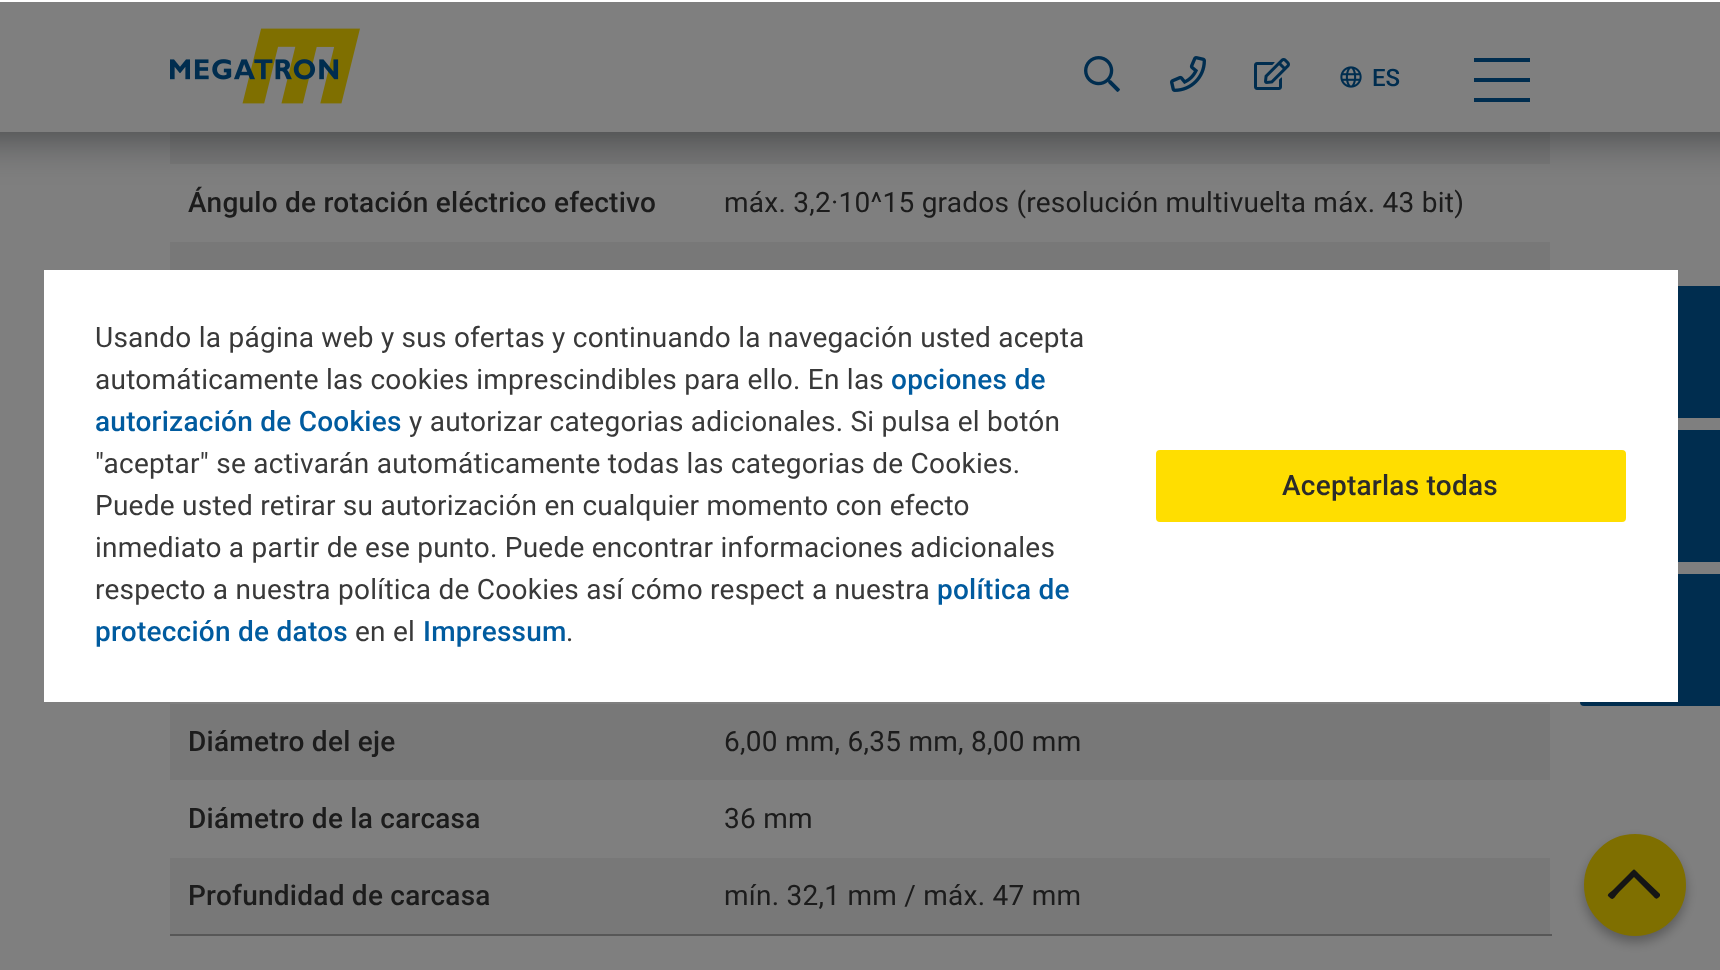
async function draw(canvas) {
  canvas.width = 1720
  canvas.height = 970
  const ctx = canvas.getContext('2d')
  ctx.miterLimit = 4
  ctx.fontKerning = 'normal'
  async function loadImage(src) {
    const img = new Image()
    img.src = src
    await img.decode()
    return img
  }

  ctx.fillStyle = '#fff'
  ctx.fillRect(0, 0, 1720, 970)
  ctx.fillStyle = '#f0f0f0'
  ctx.fillRect(170, 132, 1380, 32)
  ctx.fillStyle = '#2d3439ab'
  ctx.filter = 'blur(25px)'
  ctx.beginPath()
  ctx.rect(-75, -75, 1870, 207)
  ctx.fill()
  ctx.filter = 'none'
  ctx.fillStyle = '#fff'
  ctx.fillRect(0, 0, 1720, 132)
  ctx.drawImage(await loadImage('image0.png'), 170, 28, 190, 76)
  ctx.drawImage(await loadImage('image1.png'), 1084, 56, 36, 36)
  ctx.drawImage(await loadImage('image2.png'), 1170, 56, 36, 36)
  ctx.drawImage(await loadImage('image3.png'), 1254, 58, 36, 32)
  ctx.drawImage(await loadImage('image4.png'), 1340, 66, 22, 22)
  ctx.font = '500 24px Roboto'
  ctx.fillStyle = '#005b9f'
  ctx.fillText('ES', 1372, 86)
  ctx.fillRect(1474, 78, 56, 4)
  ctx.fillRect(1474, 58, 56, 4)
  ctx.fillRect(1474, 98, 56, 4)
  ctx.fillStyle = '#afafaf'
  ctx.fillRect(170, 934, 1382, 2)
  ctx.letterSpacing = '0.25px'
  ctx.font = '500 28px Roboto'
  ctx.fillStyle = '#393939'
  ctx.fillText('Ángulo de rotación eléctrico efectivo', 188, 212)
  ctx.font = '28px Roboto'
  ctx.fillText('máx. 3,2·10^15 grados (resolución multivuelta máx. 43 bit)', 724, 212)
  ctx.fillStyle = '#f0f0f0'
  ctx.fillRect(170, 242, 1380, 28)
  ctx.fillRect(170, 704, 1380, 76)
  ctx.font = '500 28px Roboto'
  ctx.fillStyle = '#393939'
  ctx.fillText('Diámetro del eje', 188, 751)
  ctx.font = '28px Roboto'
  ctx.fillText('6,00 mm, 6,35 mm, 8,00 mm', 724, 751)
  ctx.font = '500 28px Roboto'
  ctx.fillText('Diámetro de la carcasa', 188, 828)
  ctx.font = '28px Roboto'
  ctx.fillText('36 mm', 724, 828)
  ctx.fillStyle = '#f0f0f0'
  ctx.fillRect(170, 858, 1380, 76)
  ctx.font = '500 28px Roboto'
  ctx.fillStyle = '#393939'
  ctx.fillText('Profundidad de carcasa', 188, 905)
  ctx.font = '28px Roboto'
  ctx.fillText('mín. 32,1 mm / máx. 47 mm', 724, 905)
  ctx.fillStyle = '#005b9f'
  ctx.fillRect(1678, 288, 40, 128)
  ctx.strokeStyle = '#005b9f'
  ctx.lineWidth = 2
  ctx.strokeRect(1581, 287, 138, 130)
  ctx.fillRect(1678, 432, 40, 128)
  ctx.strokeRect(1581, 431, 138, 130)
  ctx.beginPath()
  ctx.roundRect(1581, 575, 138, 130, [3, 0, 0, 3])
  ctx.fill()
  ctx.stroke()
  ctx.fillStyle = '#0000004a'
  ctx.filter = 'blur(6px)'
  ctx.beginPath()
  ctx.roundRect(1584, 840, 102, 102, 51)
  ctx.fill()
  ctx.filter = 'none'
  ctx.fillStyle = '#ffde00'
  ctx.beginPath()
  ctx.arc(1635, 885, 50, 0, 2 * Math.PI)
  ctx.fill()
  ctx.strokeStyle = '#ffde00'
  ctx.stroke()
  ctx.fillStyle = '#2b2b2b'
  ctx.beginPath()
  ctx.moveTo(1608, 896)
  ctx.bezierCurveTo(1614, 902, 1613, 898, 1620, 891)
  ctx.lineTo(1634, 877)
  ctx.lineTo(1652, 895)
  ctx.bezierCurveTo(1655, 898, 1656, 901, 1660, 896)
  ctx.lineTo(1660, 894)
  ctx.lineTo(1639, 874)
  ctx.bezierCurveTo(1633, 868, 1635, 868, 1629, 874)
  ctx.lineTo(1613, 890)
  ctx.bezierCurveTo(1611, 892, 1607, 894, 1608, 896)
  ctx.closePath()
  ctx.fill()
  ctx.fillStyle = '#00000080'
  ctx.fillRect(0, 2, 1720, 968)
  ctx.fillStyle = '#fff'
  ctx.fillRect(44, 270, 1634, 432)
  ctx.fillStyle = '#393939'
  ctx.fillText('Usando la página web y sus ofertas y continuando la navegación usted acepta', 95, 347)
  ctx.fillText('automáticamente las cookies imprescindibles para ello. En las', 95, 389)
  ctx.font = '500 28px Roboto'
  ctx.fillStyle = '#005b9f'
  ctx.fillText('opciones de', 891, 389)
  ctx.fillText('autorización de Cookies', 95, 431)
  ctx.font = '28px Roboto'
  ctx.fillStyle = '#393939'
  ctx.fillText('y autorizar categorias adicionales. Si pulsa el botón', 409, 431)
  ctx.fillText('"aceptar" se activarán automáticamente todas las categorias de Cookies.', 95, 473)
  ctx.fillText('Puede usted retirar su autorización en cualquier momento con efecto', 95, 515)
  ctx.fillText('inmediato a partir de ese punto. Puede encontrar informaciones adicionales', 95, 557)
  ctx.fillText('respecto a nuestra política de Cookies así cómo respect a nuestra', 95, 599)
  ctx.font = '500 28px Roboto'
  ctx.fillStyle = '#005b9f'
  ctx.fillText('política de', 937, 599)
  ctx.fillText('protección de datos', 95, 641)
  ctx.font = '28px Roboto'
  ctx.fillStyle = '#393939'
  ctx.fillText('en el', 355, 641)
  ctx.font = '500 28px Roboto'
  ctx.fillStyle = '#005b9f'
  ctx.fillText('Impressum', 423, 641)
  ctx.font = '28px Roboto'
  ctx.fillStyle = '#393939'
  ctx.fillText('.', 566, 641)
  ctx.fillStyle = '#ffde00'
  ctx.beginPath()
  ctx.roundRect(1157, 451, 468, 70, 3)
  ctx.fill()
  ctx.stroke()
  ctx.font = '500 28px Roboto'
  ctx.fillStyle = '#2b2b2b'
  ctx.fillText('Aceptarlas todas', 1282, 495)
}

draw(document.querySelector('canvas'))
